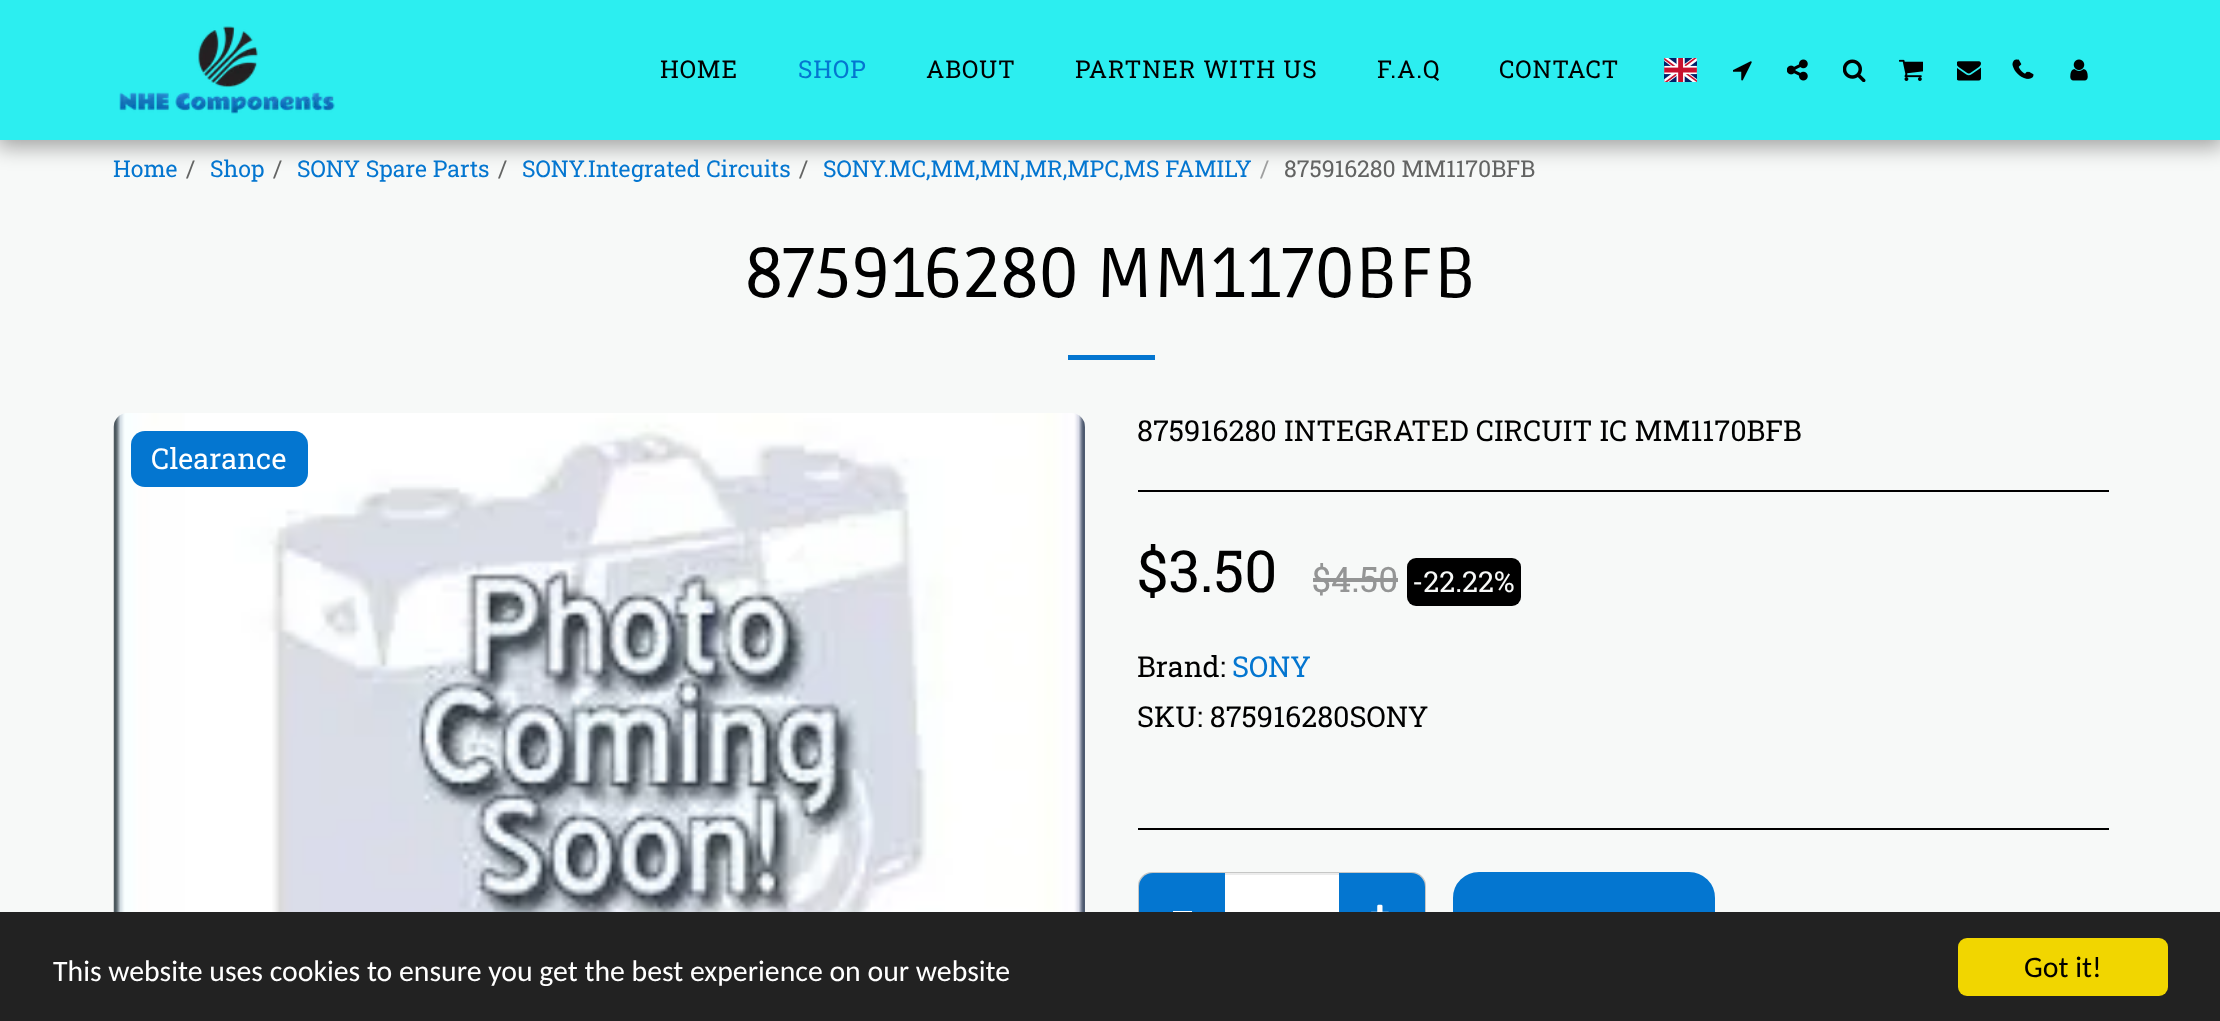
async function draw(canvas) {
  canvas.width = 2220
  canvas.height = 1021
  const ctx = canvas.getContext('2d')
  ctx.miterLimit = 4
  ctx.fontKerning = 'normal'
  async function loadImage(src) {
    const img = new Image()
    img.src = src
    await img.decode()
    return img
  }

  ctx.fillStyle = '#f7f9f8'
  ctx.fillRect(0, 0, 2220, 1021)
  ctx.fillStyle = '#00000059'
  ctx.filter = 'blur(10.5px)'
  ctx.beginPath()
  ctx.rect(-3, 0, 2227, 147)
  ctx.fill()
  ctx.filter = 'none'
  ctx.fillStyle = '#2ceef0'
  ctx.fillRect(0, 0, 2220, 140)
  ctx.drawImage(await loadImage('image0.png'), 119, 26, 216, 88)
  ctx.letterSpacing = '0.9px'
  ctx.font = '24.5px Roboto Slab'
  ctx.fillStyle = '#000'
  ctx.fillText('HOME', 660, 78)
  ctx.fillStyle = '#0476d0'
  ctx.fillText('SHOP', 798, 78)
  ctx.fillStyle = '#000'
  ctx.fillText('ABOUT', 926, 78)
  ctx.fillText('PARTNER WITH US', 1075, 78)
  ctx.fillText('F.A.Q', 1377, 78)
  ctx.fillText('CONTACT', 1499, 78)
  ctx.drawImage(await loadImage('image1.png'), 1664, 58, 33, 24)
  ctx.drawImage(await loadImage('image2.png'), 1733, 61, 19, 20)
  ctx.drawImage(await loadImage('image3.png'), 1787, 59, 21, 22)
  ctx.drawImage(await loadImage('image4.png'), 1843, 59, 23, 23)
  ctx.drawImage(await loadImage('image5.png'), 1899, 59, 24, 22)
  ctx.drawImage(await loadImage('image6.png'), 1957, 61, 24, 20)
  ctx.drawImage(await loadImage('image7.png'), 2016, 59, 18, 20)
  ctx.drawImage(await loadImage('image8.png'), 2012, 59, 18, 20)
  ctx.drawImage(await loadImage('image9.png'), 2070, 59, 18, 22)
  ctx.letterSpacing = '0px'
  ctx.font = '23.1px Roboto Slab'
  ctx.fillStyle = '#0476d0'
  ctx.fillText('Home', 113, 177)
  ctx.fillStyle = '#636463'
  ctx.fillText('/', 186, 177)
  ctx.fillStyle = '#0476d0'
  ctx.fillText('Shop', 210, 177)
  ctx.fillStyle = '#636463'
  ctx.fillText('/', 273, 177)
  ctx.fillStyle = '#0476d0'
  ctx.fillText('SONY Spare Parts', 297, 177)
  ctx.fillStyle = '#636463'
  ctx.fillText('/', 498, 177)
  ctx.fillStyle = '#0476d0'
  ctx.fillText('SONY.Integrated Circuits', 522, 177)
  ctx.fillStyle = '#636463'
  ctx.fillText('/', 799, 177)
  ctx.fillStyle = '#0476d0'
  ctx.fillText('SONY.MC,MM,MN,MR,MPC,MS FAMILY', 823, 177)
  ctx.fillStyle = '#9e9f9f'
  ctx.fillText('/', 1260, 177)
  ctx.fillStyle = '#636463'
  ctx.fillText('875916280 MM1170BFB', 1284, 177)
  ctx.font = '70.5px Ruda'
  ctx.fillStyle = '#000'
  ctx.fillText('875916280 MM1170BFB', 745, 297)
  ctx.fillStyle = '#0476d0'
  ctx.fillRect(1068, 355, 87, 5)
  ctx.drawImage(await loadImage('image10.png'), 113, 413, 972, 499)
  ctx.beginPath()
  ctx.roundRect(131, 431, 177, 56, 14)
  ctx.fill()
  ctx.font = '28.9px Roboto Slab'
  ctx.fillStyle = '#fff'
  ctx.fillText('Clearance', 151, 469)
  ctx.fillStyle = '#000'
  ctx.fillText('875916280 INTEGRATED CIRCUIT IC MM1170BFB', 1137, 441)
  ctx.fillRect(1138, 490, 971, 2)
  ctx.font = '58px Roboto Slab'
  ctx.fillText('$3.50', 1137, 592)
  ctx.font = '35px Roboto Slab'
  ctx.fillStyle = '#949595'
  ctx.fillText('$4.50', 1312, 592)
  ctx.fillRect(1313, 578, 85, 4)
  ctx.fillStyle = '#000'
  ctx.beginPath()
  ctx.roundRect(1407, 558, 114, 48, 9)
  ctx.fill()
  ctx.font = '28.9px Roboto Slab'
  ctx.fillStyle = '#f7f9f8'
  ctx.fillText('-22.22%', 1412, 592)
  ctx.fillStyle = '#000'
  ctx.fillText('Brand:', 1137, 677)
  ctx.fillStyle = '#0476d0'
  ctx.fillText('SONY', 1232, 677)
  ctx.fillStyle = '#000'
  ctx.fillText('SKU: 875916280SONY', 1137, 727)
  ctx.fillRect(1138, 828, 971, 2)
  ctx.beginPath()
  ctx.roundRect(1139, 873, 286, 87, 13)
  ctx.strokeStyle = '#c6c7c6'
  ctx.lineWidth = 2
  ctx.stroke()
  ctx.fillStyle = '#0476d0'
  ctx.beginPath()
  ctx.roundRect(1139, 873, 88, 86, [14, 0, 0, 14])
  ctx.fill()
  ctx.fillStyle = '#fff'
  ctx.fillRect(1173, 911, 19, 1)
  ctx.fillStyle = '#0476d0'
  ctx.beginPath()
  ctx.roundRect(1337, 873, 88, 86, [0, 14, 14, 0])
  ctx.fill()
  ctx.fillStyle = '#fff'
  ctx.fillRect(1225, 875, 114, 37)
  ctx.fillStyle = '#ececec'
  ctx.fillRect(1225, 873, 114, 2)
  ctx.drawImage(await loadImage('image11.png'), 1371, 904, 18, 8)
  ctx.fillStyle = '#0476d0'
  ctx.beginPath()
  ctx.roundRect(1454, 873, 260, 87, 25)
  ctx.fill()
  ctx.strokeStyle = '#0476d0'
  ctx.stroke()
  ctx.fillStyle = '#222'
  ctx.fillRect(0, 912, 2220, 109)
  ctx.font = '29.75px Carlito'
  ctx.fillStyle = '#fff'
  ctx.fillText('This website uses cookies to ensure you get the best experience on our website', 53, 981)
  ctx.fillStyle = '#f1d600'
  ctx.beginPath()
  ctx.roundRect(1958, 938, 210, 58, 9)
  ctx.fill()
  ctx.fillStyle = '#000'
  ctx.fillText('Got it!', 2024, 977)
}

draw(document.querySelector('canvas'))
